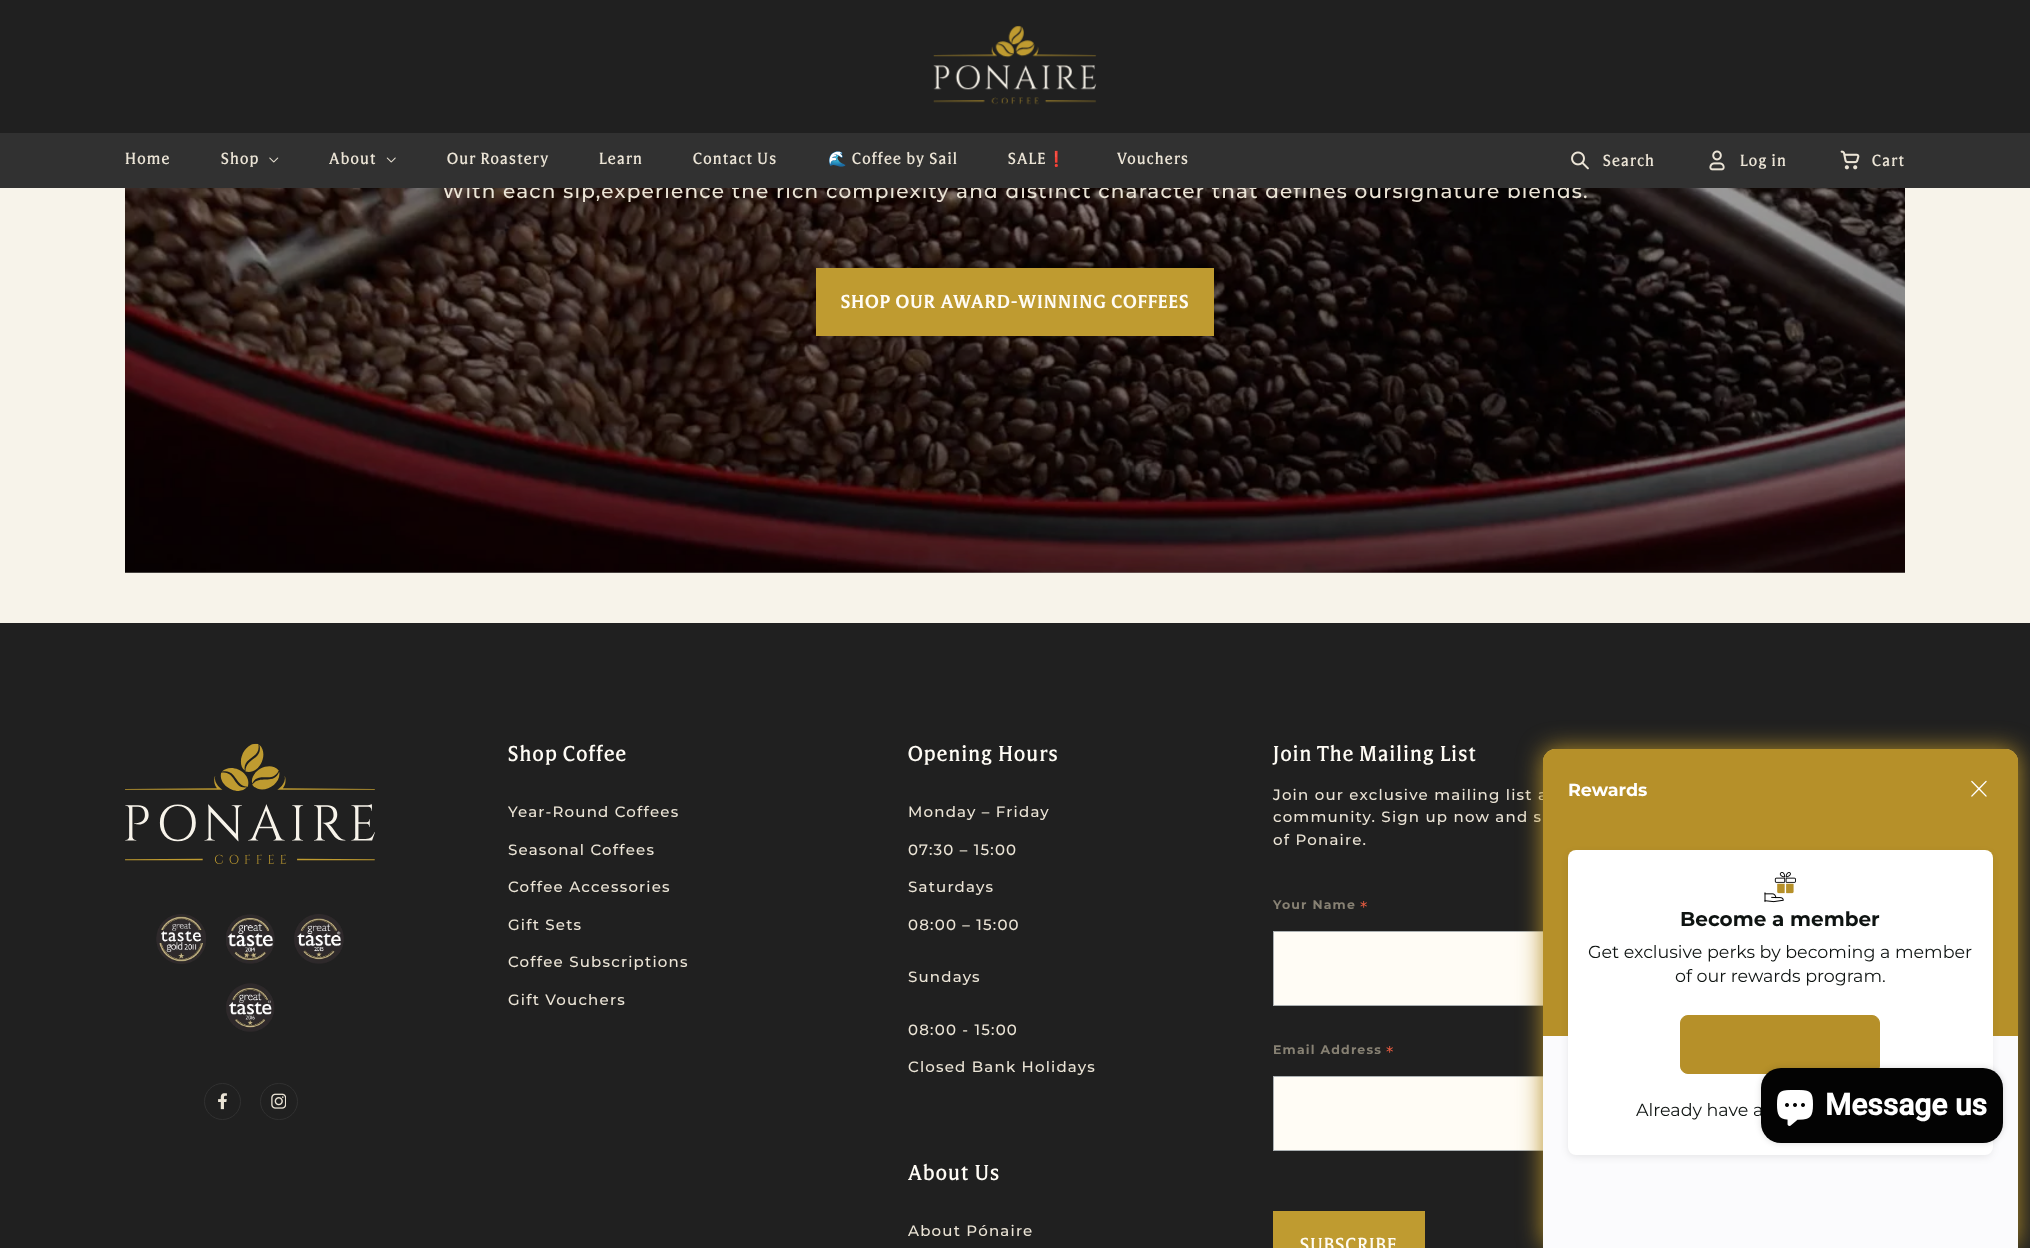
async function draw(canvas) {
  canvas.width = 2030
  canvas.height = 1248
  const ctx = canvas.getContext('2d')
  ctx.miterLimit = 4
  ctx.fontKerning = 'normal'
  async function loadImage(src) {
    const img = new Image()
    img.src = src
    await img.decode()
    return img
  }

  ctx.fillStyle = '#f7f3ea'
  ctx.fillRect(0, 0, 2030, 1248)
  ctx.fillStyle = '#94928c'
  ctx.fillRect(125, 572, 1780, 1)
  ctx.fillStyle = '#202020'
  ctx.fillRect(0, 0, 2030, 133)
  ctx.drawImage(await loadImage('image0.png'), 933, 25, 164, 80)
  ctx.drawImage(await loadImage('image6.png'), 125, 188, 1780, 385)
  ctx.letterSpacing = '1.2px'
  ctx.font = '100 20px Montserrat'
  ctx.fillStyle = '#ebe4d6'
  ctx.fillText('With each sip,experience the rich complexity and distinct character that defines oursignature blends.', 442, 198)
  ctx.fillStyle = '#313131'
  ctx.fillRect(0, 133, 2030, 55)
  ctx.font = '500 15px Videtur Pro'
  ctx.fillStyle = '#ebe4d6'
  ctx.fillText('Home', 125, 164)
  ctx.fillText('Shop', 221, 164)
  ctx.drawImage(await loadImage('image1.png'), 269, 157, 10, 6)
  ctx.fillText('About', 329, 164)
  ctx.drawImage(await loadImage('image2.png'), 386, 157, 10, 6)
  ctx.fillText('Our Roastery', 447, 164)
  ctx.fillText('Learn', 599, 164)
  ctx.fillText('Contact Us', 693, 164)
  ctx.font = '15px Noto Color Emoji'
  ctx.fillText('🌊', 828, 164)
  ctx.font = '500 15px Videtur Pro'
  ctx.fillText('Coffee by Sail', 852, 164)
  ctx.fillText('SALE', 1008, 164)
  ctx.font = '15px Noto Color Emoji'
  ctx.fillText('❗', 1047, 164)
  ctx.font = '500 15px Videtur Pro'
  ctx.fillText('Vouchers', 1117, 164)
  ctx.drawImage(await loadImage('image3.png'), 1571, 151, 18, 19)
  ctx.fillText('Search', 1603, 166)
  ctx.drawImage(await loadImage('image4.png'), 1709, 150, 16, 21)
  ctx.fillText('Log in', 1740, 166)
  ctx.drawImage(await loadImage('image5.png'), 1840, 150, 20, 20)
  ctx.fillText('Cart', 1872, 166)
  ctx.fillStyle = '#bf9b30'
  ctx.fillRect(816, 268, 398, 68)
  ctx.font = 'bold 17.5px Videtur Pro'
  ctx.fillStyle = '#fffcf5'
  ctx.fillText('SHOP OUR AWARD-WINNING COFFEES', 841, 308)
  ctx.fillStyle = '#202020'
  ctx.fillRect(0, 623, 2030, 625)
  ctx.drawImage(await loadImage('image7.png'), 125, 743, 250, 121)
  ctx.drawImage(await loadImage('image8.png'), 156, 914, 50, 50)
  ctx.drawImage(await loadImage('image9.png'), 226, 914, 49, 50)
  ctx.drawImage(await loadImage('image10.png'), 294, 914, 50, 50)
  ctx.drawImage(await loadImage('image11.png'), 226, 983, 49, 49)
  ctx.beginPath()
  ctx.arc(222.5, 1101.5, 18, 0, 2 * Math.PI)
  ctx.strokeStyle = '#313131'
  ctx.stroke()
  ctx.drawImage(await loadImage('image12.png'), 218, 1093, 9, 17)
  ctx.beginPath()
  ctx.roundRect(260.5, 1083.5, 37, 36, 18)
  ctx.stroke()
  ctx.drawImage(await loadImage('image13.png'), 271, 1093, 15, 16)
  ctx.font = '500 20px Videtur Pro'
  ctx.fillStyle = '#fffcf5'
  ctx.fillText('Shop Coffee', 508, 761)
  ctx.font = '100 15px Montserrat'
  ctx.fillStyle = '#ebe4d6'
  ctx.fillText('Year-Round Coffees', 508, 817)
  ctx.fillText('Seasonal Coffees', 508, 855)
  ctx.fillText('Coffee Accessories', 508, 892)
  ctx.fillText('Gift Sets', 508, 930)
  ctx.fillText('Coffee Subscriptions', 508, 967)
  ctx.fillText('Gift Vouchers', 508, 1005)
  ctx.font = '500 20px Videtur Pro'
  ctx.fillStyle = '#fffcf5'
  ctx.fillText('Opening Hours', 908, 761)
  ctx.font = '100 15px Montserrat'
  ctx.fillStyle = '#ebe4d6'
  ctx.fillText('Monday – Friday', 908, 817)
  ctx.fillText('07:30 – 15:00', 908, 855)
  ctx.fillText('Saturdays', 908, 892)
  ctx.fillText('08:00 – 15:00', 908, 930)
  ctx.fillText('Sundays', 908, 982)
  ctx.fillText('08:00 - 15:00', 908, 1035)
  ctx.fillText('Closed Bank Holidays', 908, 1072)
  ctx.font = '500 20px Videtur Pro'
  ctx.fillStyle = '#fffcf5'
  ctx.fillText('About Us', 908, 1180)
  ctx.font = '100 15px Montserrat'
  ctx.fillStyle = '#ebe4d6'
  ctx.fillText('About Pónaire', 908, 1236)
  ctx.font = '500 20px Videtur Pro'
  ctx.fillStyle = '#fffcf5'
  ctx.fillText('Join The Mailing List', 1273, 761)
  ctx.font = '100 15px Montserrat'
  ctx.fillStyle = '#ebe4d6'
  ctx.fillText('Join our exclusive mailing list a', 1273, 800)
  ctx.fillText('community. Sign up now and s', 1273, 822)
  ctx.fillText('of Ponaire.', 1273, 845)
  ctx.font = 'bold 12.5px Montserrat'
  ctx.fillStyle = '#878173'
  ctx.fillText('Your Name', 1273, 909)
  ctx.font = '100 19px "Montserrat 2"'
  ctx.fillStyle = '#e85c41'
  ctx.fillText('*', 1360, 915)
  ctx.fillStyle = '#fffcf5'
  ctx.fillRect(1274, 932, 269, 73)
  ctx.strokeStyle = '#abb0b2'
  ctx.strokeRect(1273.5, 931.5, 606, 74)
  ctx.font = 'bold 12.5px Montserrat'
  ctx.fillStyle = '#878173'
  ctx.fillText('Email Address', 1273, 1054)
  ctx.font = '100 19px "Montserrat 2"'
  ctx.fillStyle = '#e85c41'
  ctx.fillText('*', 1386, 1060)
  ctx.fillStyle = '#fffcf5'
  ctx.fillRect(1274, 1077, 269, 73)
  ctx.strokeRect(1273.5, 1076.5, 606, 74)
  ctx.fillStyle = '#bf9b30'
  ctx.fillRect(1273, 1211, 152, 37)
  ctx.font = '500 17.5px Videtur Pro'
  ctx.fillStyle = '#fffcf5'
  ctx.fillText('SUBSCRIBE', 1300, 1251)
  ctx.fillStyle = '#b69029'
  ctx.filter = 'blur(12.5px)'
  ctx.beginPath()
  ctx.roundRect(1543, 749, 475, 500, 13)
  ctx.fill()
  ctx.filter = 'none'
  ctx.fillStyle = '#fbfbfd'
  ctx.beginPath()
  ctx.moveTo(1556, 749)
  ctx.lineTo(2005, 749)
  ctx.bezierCurveTo(2012, 749, 2018, 755, 2018, 762)
  ctx.lineTo(2018, 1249)
  ctx.lineTo(1543, 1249)
  ctx.lineTo(1543, 762)
  ctx.bezierCurveTo(1543, 755, 1549, 749, 1556, 749)
  ctx.closePath()
  ctx.fill()
  ctx.fillStyle = '#b69029'
  ctx.beginPath()
  ctx.roundRect(1543, 749, 475, 287, [13, 13, 0, 0])
  ctx.fill()
  ctx.fillStyle = '#b69029e6'
  ctx.beginPath()
  ctx.roundRect(1543, 749, 475, 84, [13, 13, 0, 0])
  ctx.fill()
  ctx.beginPath()
  ctx.roundRect(1543, 749, 475, 84, [13, 13, 0, 0])
  ctx.fill()
  ctx.letterSpacing = '0px'
  ctx.font = 'bold 17.5px Montserrat'
  ctx.fillStyle = '#fff'
  ctx.fillText('Rewards', 1568, 796)
  ctx.drawImage(await loadImage('image14.png'), 1971, 780, 16, 17)
  ctx.fillStyle = '#0000001a'
  ctx.filter = 'blur(4px)'
  ctx.beginPath()
  ctx.roundRect(1569, 854, 422, 302, 6)
  ctx.fill()
  ctx.filter = 'none'
  ctx.fillStyle = '#fff'
  ctx.beginPath()
  ctx.roundRect(1568, 850, 425, 305, 8)
  ctx.fill()
  ctx.drawImage(await loadImage('image15.png'), 1764, 872, 32, 31)
  ctx.font = 'bold 20px Montserrat'
  ctx.fillStyle = '#0e1311'
  ctx.fillText('Become a member', 1680, 926)
  ctx.font = '100 17.5px "Montserrat 2"'
  ctx.fillText('Get exclusive perks by becoming a member', 1588, 958)
  ctx.fillText('of our rewards program.', 1675, 982)
  ctx.fillStyle = '#b69029'
  ctx.beginPath()
  ctx.roundRect(1680.5, 1015.5, 199, 58, 7.5)
  ctx.fill()
  ctx.strokeStyle = '#b69029'
  ctx.stroke()
  ctx.fillStyle = '#0e1311'
  ctx.fillText('Already have a', 1636, 1116)
  ctx.fillStyle = '#00000026'
  ctx.filter = 'blur(3px)'
  ctx.beginPath()
  ctx.roundRect(1761, 1068, 242, 75, 20)
  ctx.fill()
  ctx.filter = 'none'
  ctx.fillStyle = '#030303'
  ctx.beginPath()
  ctx.roundRect(1761, 1068, 242, 75, 20)
  ctx.fill()
  ctx.drawImage(await loadImage('image16.png'), 1777, 1090, 36, 36)
  ctx.font = 'bold 30px Roboto'
  ctx.fillStyle = '#fff'
  ctx.fillText('Message us', 1825, 1115)
}

draw(document.querySelector('canvas'))
